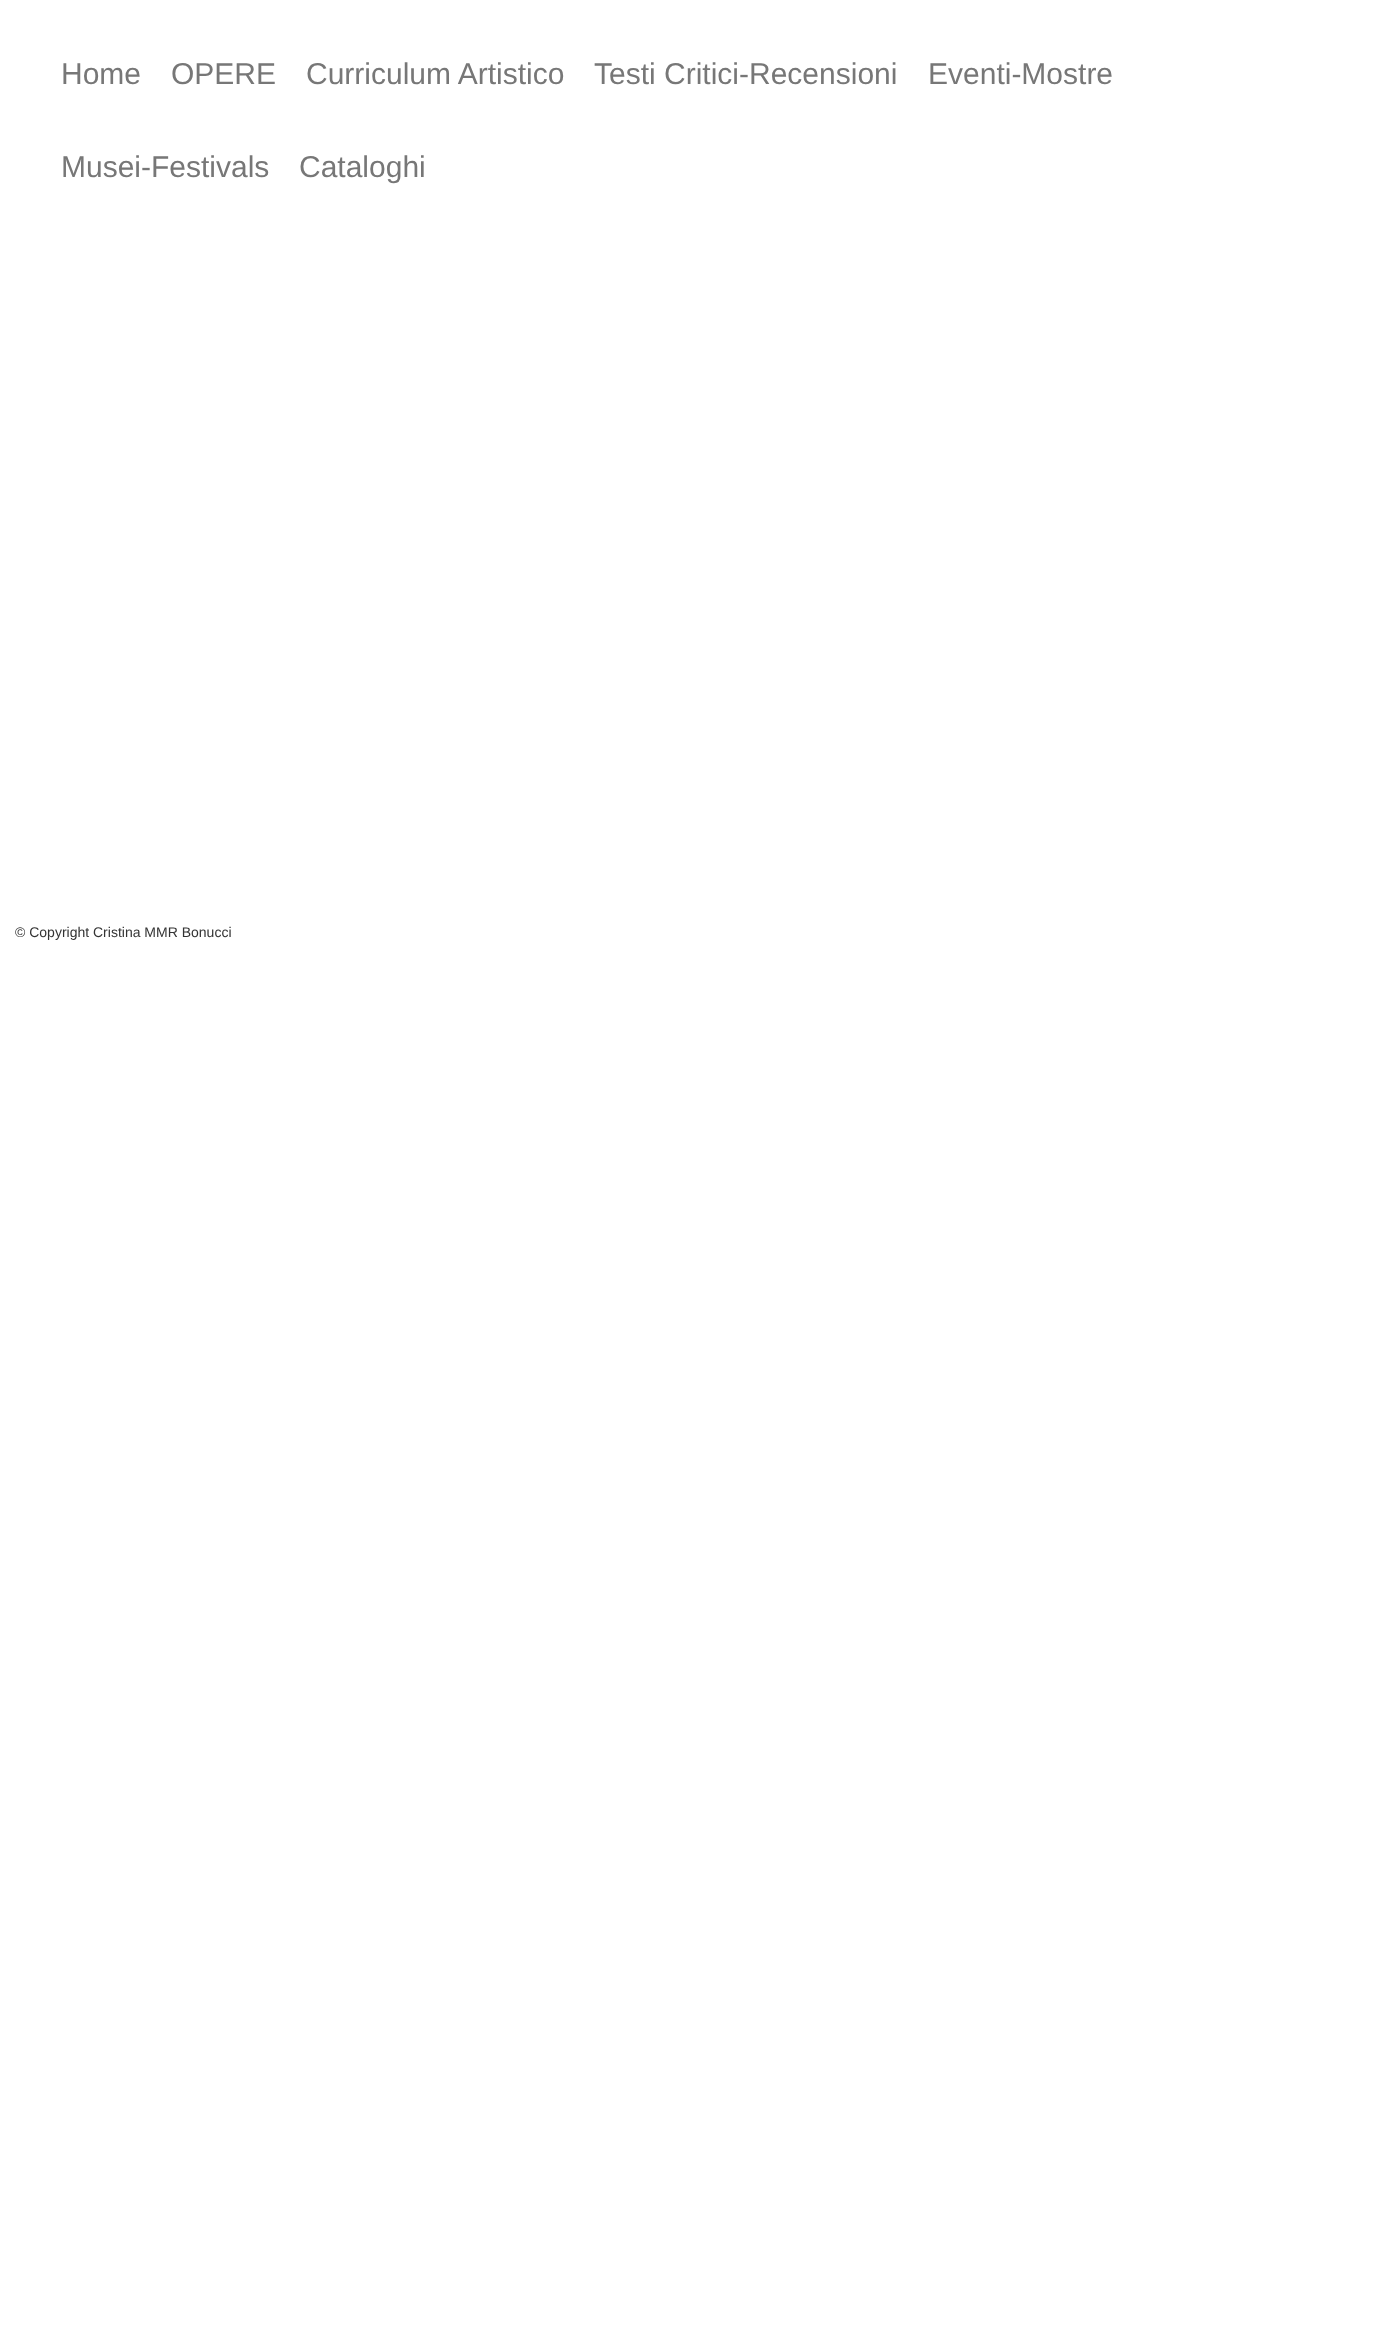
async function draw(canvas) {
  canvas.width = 1386
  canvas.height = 2331
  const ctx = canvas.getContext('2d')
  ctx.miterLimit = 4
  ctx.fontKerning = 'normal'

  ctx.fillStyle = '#fff'
  ctx.fillRect(0, 0, 1386, 2331)
  ctx.font = '30px Liberation Sans'
  ctx.fillStyle = '#777'
  ctx.fillText('Home', 61, 84)
  ctx.fillText('OPERE', 171, 84)
  ctx.fillText('Curriculum Artistico', 306, 84)
  ctx.fillText('Testi Critici-Recensioni', 594, 84)
  ctx.fillText('Eventi-Mostre', 928, 84)
  ctx.fillText('Musei-Festivals', 61, 177)
  ctx.fillText('Cataloghi', 299, 177)
  ctx.font = '14px Liberation Sans'
  ctx.fillStyle = '#333'
  ctx.fillText('© Copyright Cristina MMR Bonucci', 15, 937)
}

draw(document.querySelector('canvas'))
